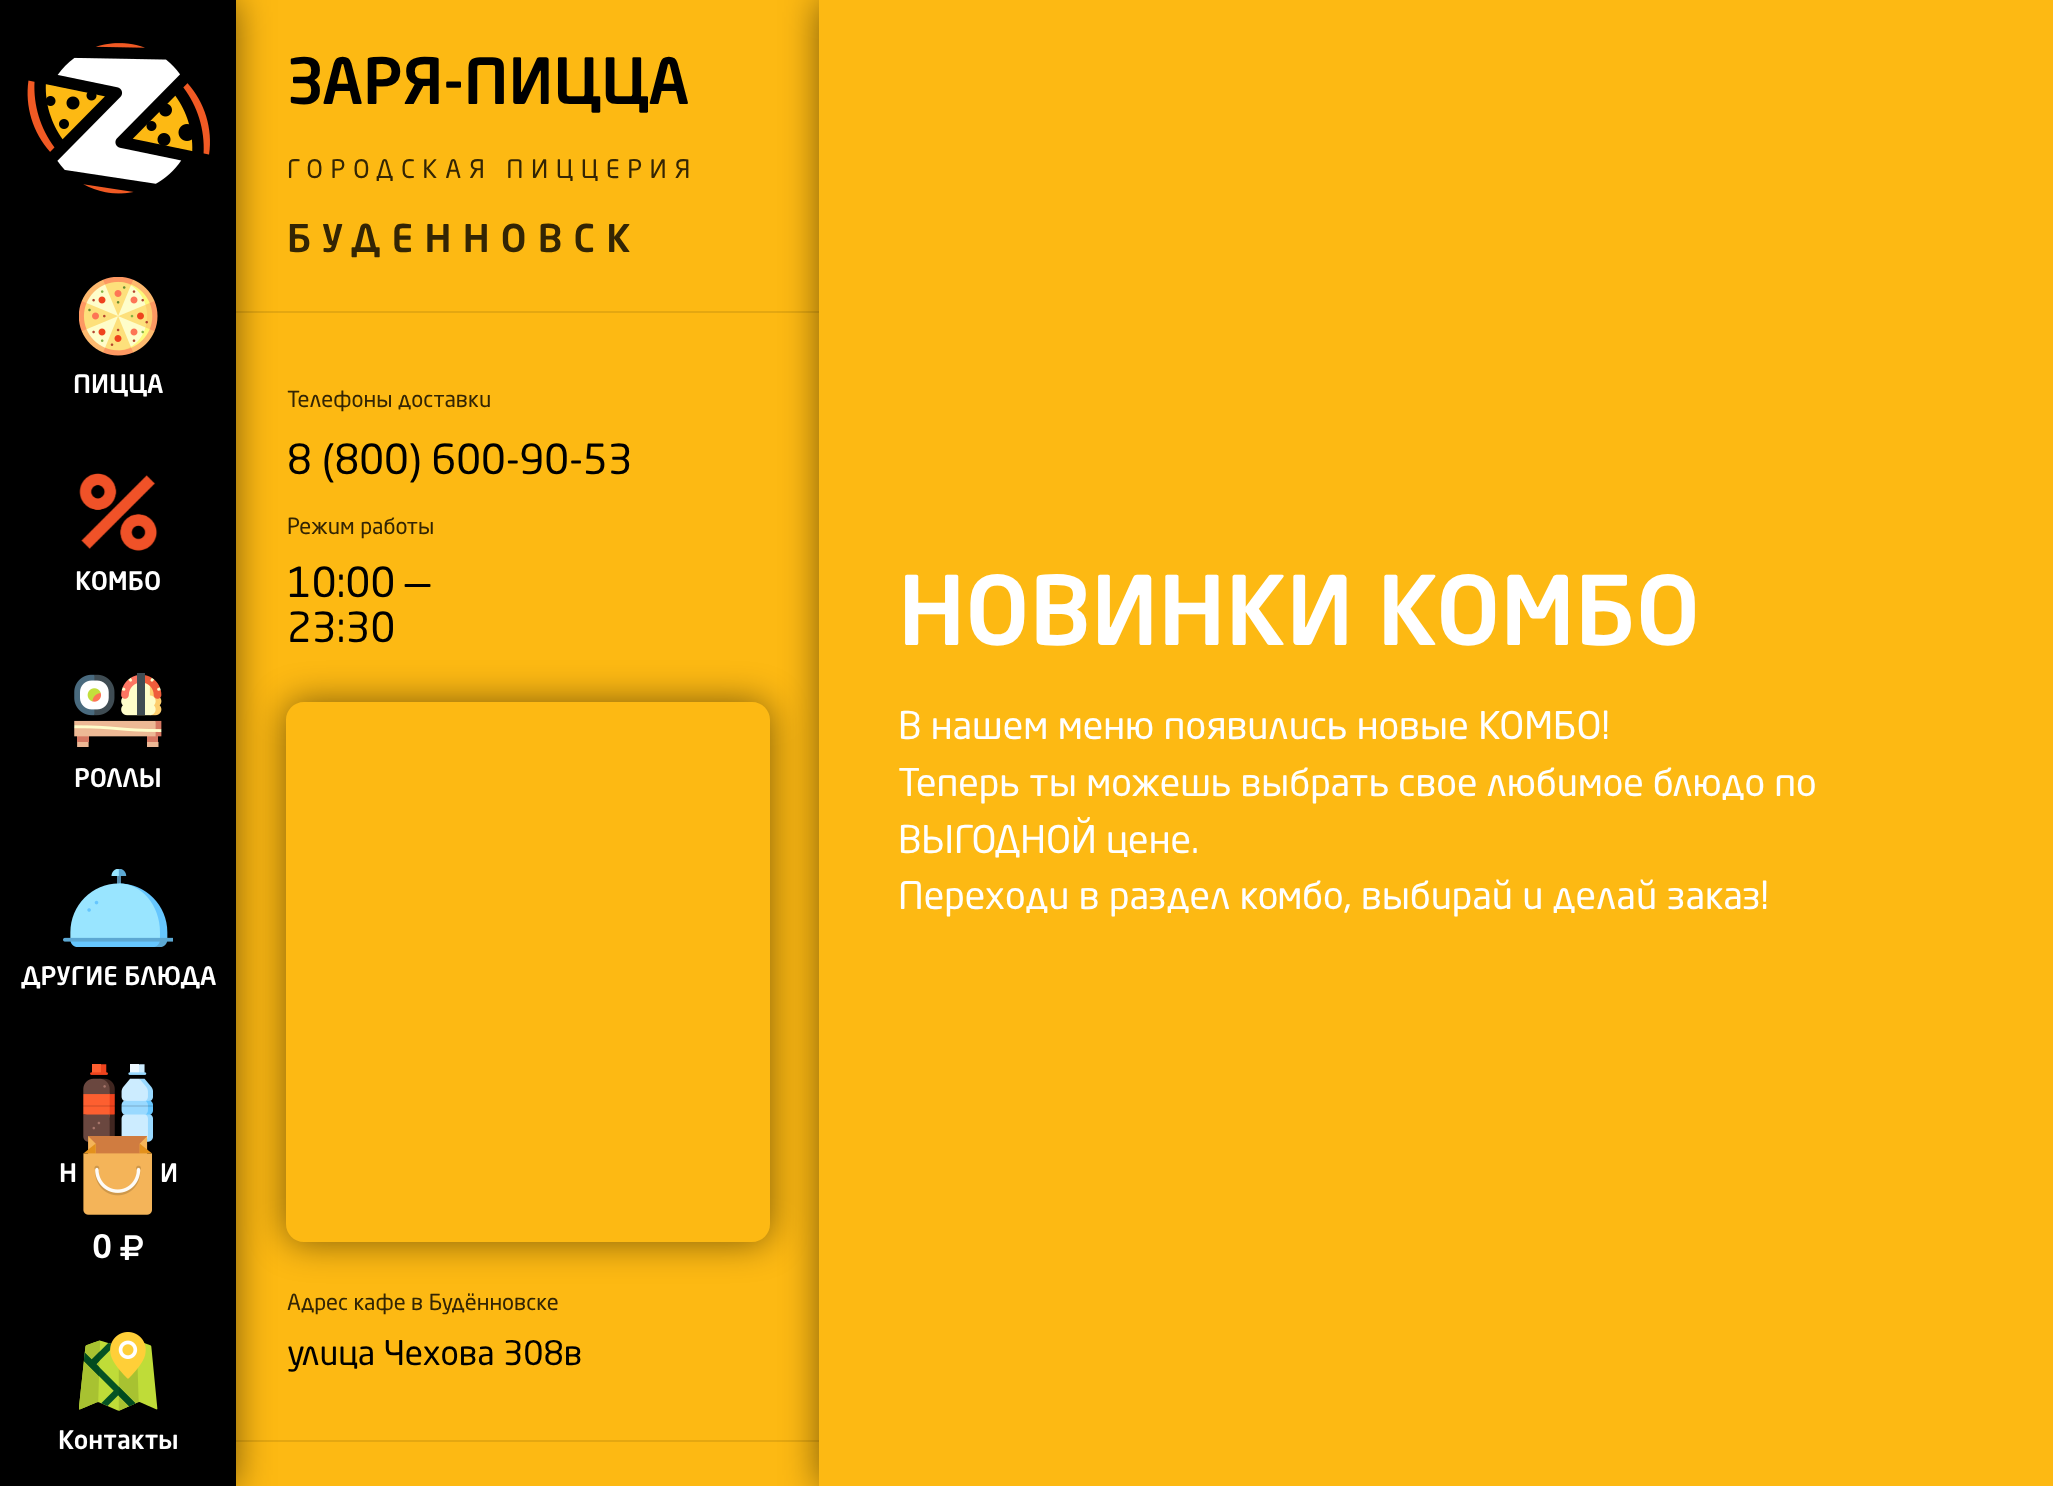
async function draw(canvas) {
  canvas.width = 2053
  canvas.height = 1486
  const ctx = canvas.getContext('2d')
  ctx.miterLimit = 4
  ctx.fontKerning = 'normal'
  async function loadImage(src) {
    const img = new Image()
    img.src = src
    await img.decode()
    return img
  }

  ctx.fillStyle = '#fdb913'
  ctx.fillRect(0, 0, 2053, 1486)
  ctx.fillStyle = '#e4a711'
  ctx.fillRect(236, 311, 583, 2)
  ctx.fillRect(236, 1440, 583, 2)
  ctx.fillStyle = '#00000080'
  ctx.filter = 'blur(18px)'
  ctx.beginPath()
  ctx.rect(0, 0, 236, 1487)
  ctx.fill()
  ctx.filter = 'none'
  ctx.save()
  ctx.beginPath()
  ctx.moveTo(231, 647)
  ctx.lineTo(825, 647)
  ctx.lineTo(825, 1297)
  ctx.lineTo(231, 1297)
  ctx.closePath()
  ctx.moveTo(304, 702)
  ctx.lineTo(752, 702)
  ctx.bezierCurveTo(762, 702, 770, 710, 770, 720)
  ctx.lineTo(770, 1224)
  ctx.bezierCurveTo(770, 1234, 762, 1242, 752, 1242)
  ctx.lineTo(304, 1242)
  ctx.bezierCurveTo(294, 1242, 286, 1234, 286, 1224)
  ctx.lineTo(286, 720)
  ctx.bezierCurveTo(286, 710, 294, 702, 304, 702)
  ctx.closePath()
  ctx.clip('evenodd')
  ctx.filter = 'blur(18px)'
  ctx.beginPath()
  ctx.roundRect(286, 702, 484, 540, 18)
  ctx.fill()
  ctx.filter = 'none'
  ctx.restore()
  ctx.fillStyle = '#000'
  ctx.fillRect(0, 0, 236, 1486)
  ctx.drawImage(await loadImage('image0.png'), 27, 43, 183, 151)
  ctx.drawImage(await loadImage('image1.png'), 79, 277, 79, 79)
  ctx.font = '500 25.25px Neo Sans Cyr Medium'
  ctx.fillStyle = '#fff'
  ctx.fillText('ПИЦЦА', 73, 393)
  ctx.drawImage(await loadImage('image2.png'), 79, 473, 79, 78)
  ctx.fillText('КОМБО', 75, 590)
  ctx.drawImage(await loadImage('image3.png'), 74, 673, 88, 74)
  ctx.fillText('РОЛЛЫ', 74, 787)
  ctx.drawImage(await loadImage('image4.png'), 63, 869, 110, 78)
  ctx.fillText('ДРУГИЕ БЛЮДА', 21, 985)
  ctx.drawImage(await loadImage('image5.png'), 83, 1064, 70, 78)
  ctx.fillText('Н', 59, 1182)
  ctx.fillText('И', 160, 1182)
  ctx.fillStyle = '#0000001a'
  ctx.fillRect(83, 1105, 70, 2)
  ctx.drawImage(await loadImage('image6.png'), 83, 1136, 69, 79)
  ctx.font = '500 32px Neo Sans Cyr Medium'
  ctx.fillStyle = '#fff'
  ctx.fillText('0', 92, 1258)
  ctx.drawImage(await loadImage('image7.png'), 120, 1235, 23, 25)
  ctx.drawImage(await loadImage('image8.png'), 79, 1332, 79, 79)
  ctx.font = '500 25.25px Neo Sans Cyr Medium'
  ctx.fillText('Контакты', 58, 1449)
  ctx.font = '500 63px Neo Sans Cyr Medium'
  ctx.fillStyle = '#000'
  ctx.fillText('ЗАРЯ-ПИЦЦА', 287, 104)
  ctx.letterSpacing = '7.6px'
  ctx.font = '25.25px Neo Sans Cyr'
  ctx.fillStyle = '#332504'
  ctx.fillText('ГОРОДСКАЯ ПИЦЦЕРИЯ', 287, 178)
  ctx.letterSpacing = '11.25px'
  ctx.font = '500 37.8px Neo Sans Cyr Medium'
  ctx.fillText('БУДЕННОВСК', 287, 252)
  ctx.letterSpacing = '0px'
  ctx.font = '22px Neo Sans Cyr'
  ctx.fillText('Телефоны доставки', 287, 407)
  ctx.font = '41px Neo Sans Cyr'
  ctx.fillStyle = '#000'
  ctx.fillText('8 (800) 600-90-53', 287, 474)
  ctx.font = '22px Neo Sans Cyr'
  ctx.fillStyle = '#332504'
  ctx.fillText('Режим работы', 287, 534)
  ctx.font = '41px Neo Sans Cyr'
  ctx.fillStyle = '#000'
  ctx.fillText('10:00 —', 287, 597)
  ctx.fillText('23:30', 287, 642)
  ctx.font = '22px Neo Sans Cyr'
  ctx.fillStyle = '#332504'
  ctx.fillText('Адрес кафе в Будённовске', 287, 1310)
  ctx.font = '33.5px Neo Sans Cyr'
  ctx.fillStyle = '#000'
  ctx.fillText('улица Чехова 308в', 287, 1365)
  ctx.fillStyle = '#00000080'
  ctx.filter = 'blur(18px)'
  ctx.beginPath()
  ctx.rect(819, 0, 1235, 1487)
  ctx.fill()
  ctx.filter = 'none'
  ctx.fillStyle = '#fdb913'
  ctx.fillRect(819, 0, 1234, 1486)
  ctx.font = '500 94.5px Neo Sans Cyr Medium'
  ctx.fillStyle = '#fff'
  ctx.fillText('НОВИНКИ КОМБО', 898, 645)
  ctx.font = '37.8px Neo Sans Cyr'
  ctx.fillText('В нашем меню появились новые КОМБО!', 898, 739)
  ctx.wordSpacing = '-0.25px'
  ctx.fillText('Теперь ты можешь выбрать свое любимое блюдо по', 898, 796)
  ctx.wordSpacing = '0px'
  ctx.fillText('ВЫГОДНОЙ цене.', 898, 853)
  ctx.fillText('Переходи в раздел комбо, выбирай и делай заказ!', 898, 909)
}

draw(document.querySelector('canvas'))
